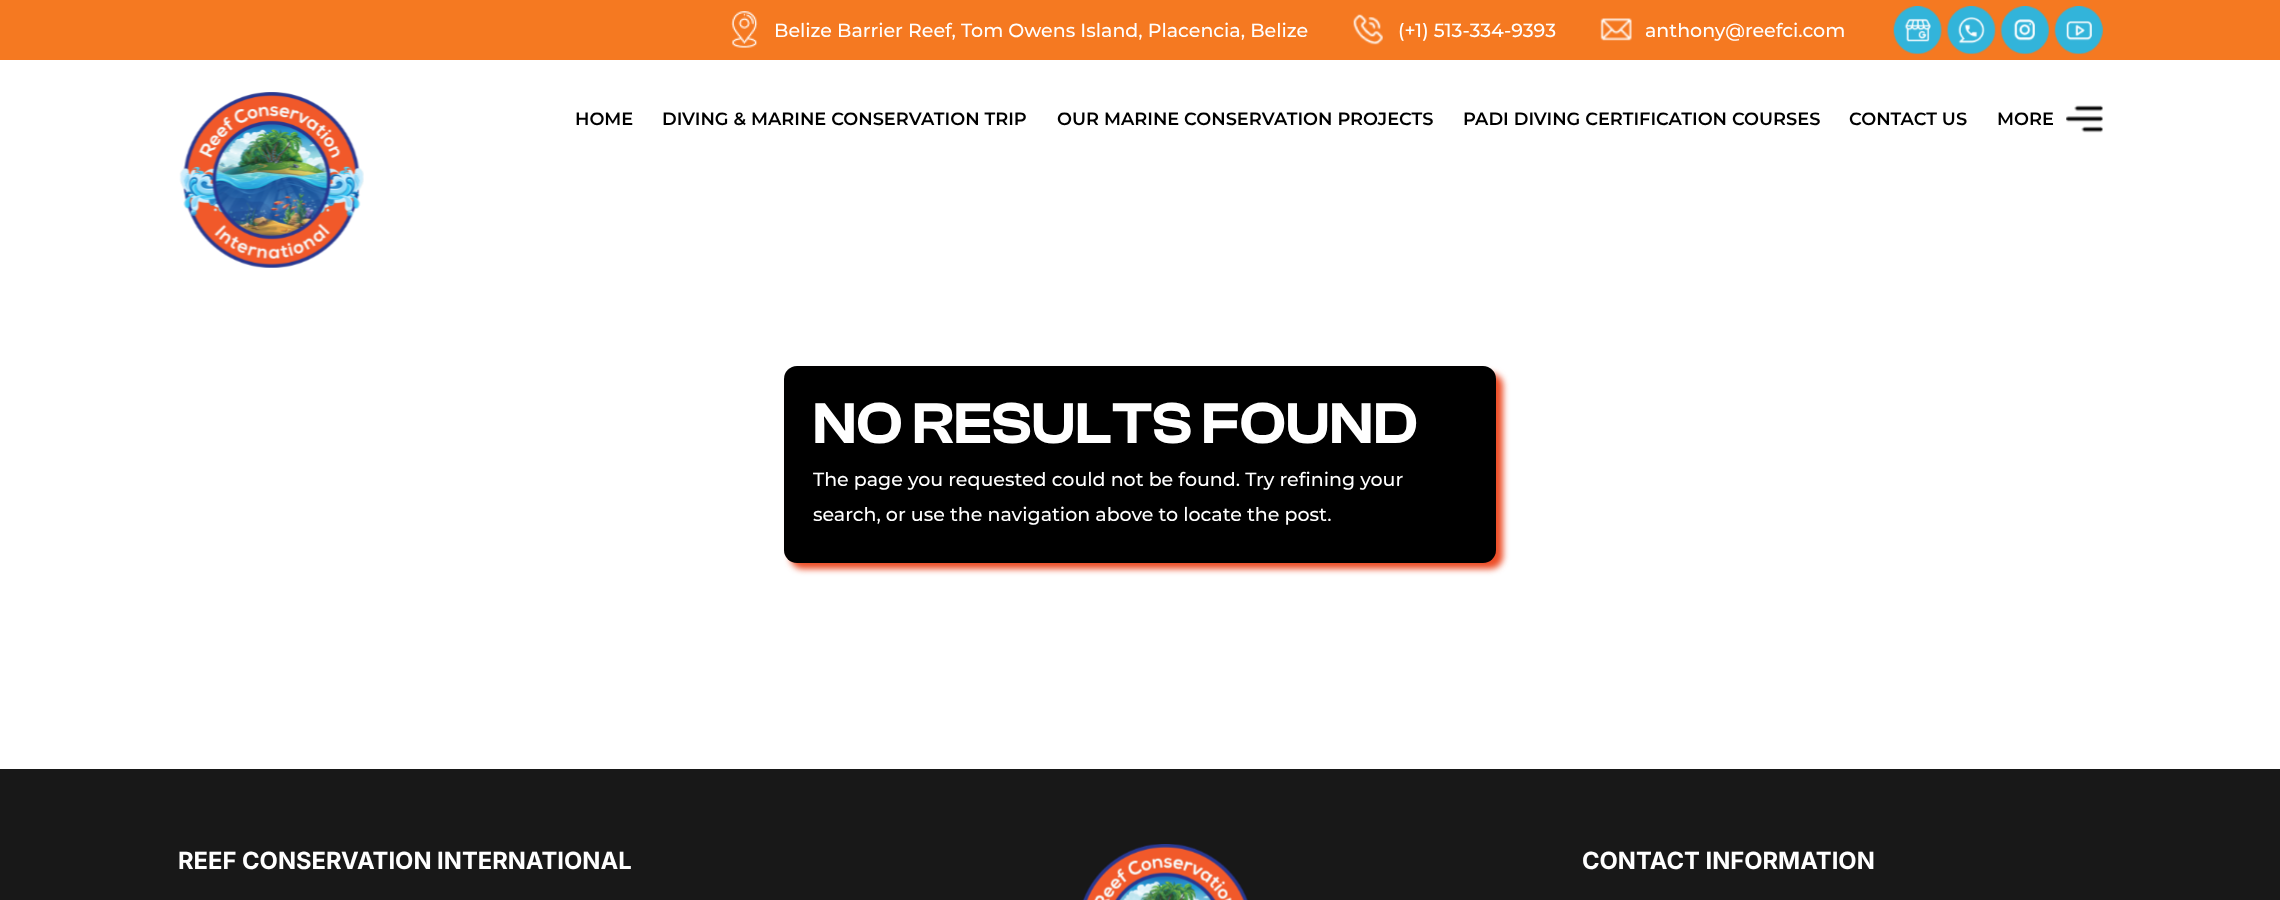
async function draw(canvas) {
  canvas.width = 2280
  canvas.height = 900
  const ctx = canvas.getContext('2d')
  ctx.miterLimit = 4
  ctx.fontKerning = 'normal'
  async function loadImage(src) {
    const img = new Image()
    img.src = src
    await img.decode()
    return img
  }

  ctx.fillStyle = '#fff'
  ctx.fillRect(0, 0, 2280, 900)
  ctx.fillStyle = '#f57921'
  ctx.fillRect(0, 0, 2280, 60)
  ctx.drawImage(await loadImage('image0.png'), 731, 11, 27, 37)
  ctx.font = '500 19px Montserrat'
  ctx.fillStyle = '#fff'
  ctx.fillText('Belize Barrier Reef, Tom Owens Island, Placencia, Belize', 774, 37)
  ctx.drawImage(await loadImage('image1.png'), 1353, 14, 30, 31)
  ctx.fillText('(+1) 513-334-9393', 1398, 37)
  ctx.drawImage(await loadImage('image2.png'), 1600, 18, 32, 23)
  ctx.fillText('anthony@reefci.com', 1645, 37)
  ctx.drawImage(await loadImage('image3.png'), 1893, 6, 49, 48)
  ctx.drawImage(await loadImage('image4.png'), 1946, 6, 50, 48)
  ctx.drawImage(await loadImage('image5.png'), 2000, 6, 49, 48)
  ctx.drawImage(await loadImage('image6.png'), 2054, 6, 49, 48)
  ctx.drawImage(await loadImage('image7.png'), 179, 92, 185, 176)
  ctx.font = '600 17.8px Montserrat'
  ctx.fillStyle = '#000'
  ctx.fillText('HOME', 575, 125)
  ctx.fillText('DIVING & MARINE CONSERVATION TRIP', 662, 125)
  ctx.fillText('OUR MARINE CONSERVATION PROJECTS', 1057, 125)
  ctx.fillText('PADI DIVING CERTIFICATION COURSES', 1463, 125)
  ctx.fillText('CONTACT US', 1849, 125)
  ctx.fillText('MORE', 1997, 125)
  ctx.drawImage(await loadImage('image8.png'), 2066, 105, 37, 28)
  ctx.fillStyle = '#ed4e28'
  ctx.filter = 'blur(3px)'
  ctx.beginPath()
  ctx.roundRect(790, 373, 713, 196, 13)
  ctx.fill()
  ctx.filter = 'none'
  ctx.fillStyle = '#000'
  ctx.beginPath()
  ctx.roundRect(784, 366, 712, 197, 13)
  ctx.fill()
  ctx.letterSpacing = '0.4px'
  ctx.font = '600 59.4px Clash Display'
  ctx.fillStyle = '#fff'
  ctx.fillText('NO RESULTS FOUND', 813, 443)
  ctx.letterSpacing = '0px'
  ctx.font = '500 19px Montserrat'
  ctx.fillText('The page you requested could not be found. Try refining your', 813, 486)
  ctx.fillText('search, or use the navigation above to locate the post.', 813, 521)
  ctx.fillStyle = '#181818'
  ctx.fillRect(0, 769, 2280, 131)
  ctx.font = 'bold 23.75px Inter'
  ctx.fillStyle = '#fff'
  ctx.fillText('REEF CONSERVATION INTERNATIONAL', 178, 869)
  ctx.drawImage(await loadImage('image9.png'), 1082, 844, 166, 56)
  ctx.fillText('CONTACT INFORMATION', 1582, 869)
}

draw(document.querySelector('canvas'))
